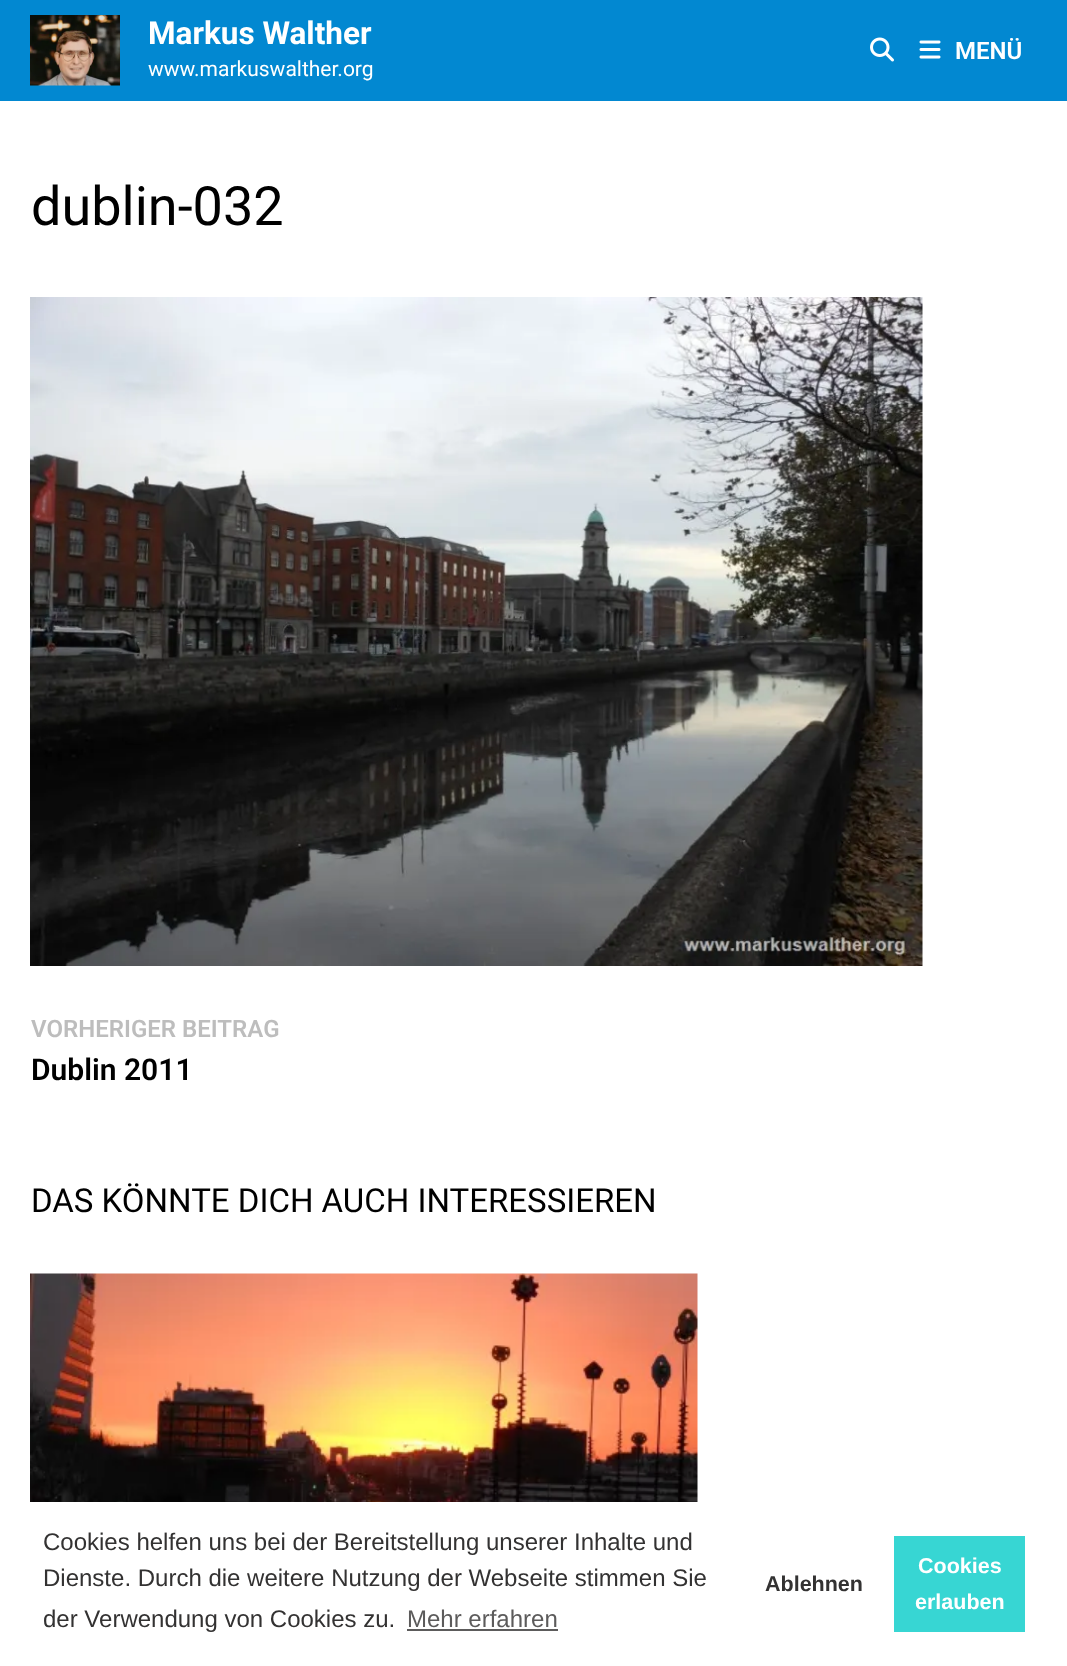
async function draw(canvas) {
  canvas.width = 1067
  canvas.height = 1666
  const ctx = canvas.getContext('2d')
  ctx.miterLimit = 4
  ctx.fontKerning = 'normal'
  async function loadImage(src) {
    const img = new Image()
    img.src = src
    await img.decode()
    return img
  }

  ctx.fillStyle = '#fff'
  ctx.fillRect(0, 0, 1067, 1666)
  ctx.fillStyle = '#0288d1'
  ctx.fillRect(0, 0, 1067, 101)
  ctx.drawImage(await loadImage('image0.png'), 30, 15, 90, 71)
  ctx.font = 'bold 31.5px Roboto'
  ctx.fillStyle = '#fff'
  ctx.fillText('Markus Walther', 148, 44)
  ctx.font = '21px Roboto'
  ctx.fillText('www.markuswalther.org', 148, 76)
  ctx.drawImage(await loadImage('image1.png'), 870, 37, 24, 25)
  ctx.drawImage(await loadImage('image2.png'), 919, 40, 22, 19)
  ctx.font = '600 24px Roboto'
  ctx.fillText('MENÜ', 955, 59)
  ctx.font = '54px Roboto'
  ctx.fillStyle = '#000'
  ctx.fillText('dublin-032', 31, 225)
  ctx.drawImage(await loadImage('image3.png'), 30, 297, 893, 669)
  ctx.font = '600 24px Roboto'
  ctx.fillStyle = '#bdbdbd'
  ctx.fillText('VORHERIGER BEITRAG', 31, 1037)
  ctx.font = '600 30px Roboto'
  ctx.fillStyle = '#000'
  ctx.fillText('Dublin 2011', 31, 1080)
  ctx.font = '33px Roboto'
  ctx.fillText('DAS KÖNNTE DICH AUCH INTERESSIEREN', 31, 1212)
  ctx.drawImage(await loadImage('image4.png'), 30, 1273, 668, 229)
  ctx.font = '24px Liberation Sans'
  ctx.fillStyle = '#333232'
  ctx.fillText('Cookies helfen uns bei der Bereitstellung unserer Inhalte und', 43, 1550)
  ctx.fillText('Dienste. Durch die weitere Nutzung der Webseite stimmen Sie', 43, 1586)
  ctx.fillText('der Verwendung von Cookies zu.', 43, 1627)
  ctx.fillStyle = '#5c5b5b'
  ctx.fillText('Mehr erfahren', 407, 1627)
  ctx.fillRect(407, 1629, 151, 2)
  ctx.font = 'bold 21.5px Liberation Sans'
  ctx.fillStyle = '#333232'
  ctx.fillText('Ablehnen', 765, 1591)
  ctx.fillStyle = '#37d6d3'
  ctx.fillRect(894, 1536, 131, 96)
  ctx.fillStyle = '#fff'
  ctx.fillText('Cookies', 918, 1573)
  ctx.fillText('erlauben', 915, 1609)
}

draw(document.querySelector('canvas'))
